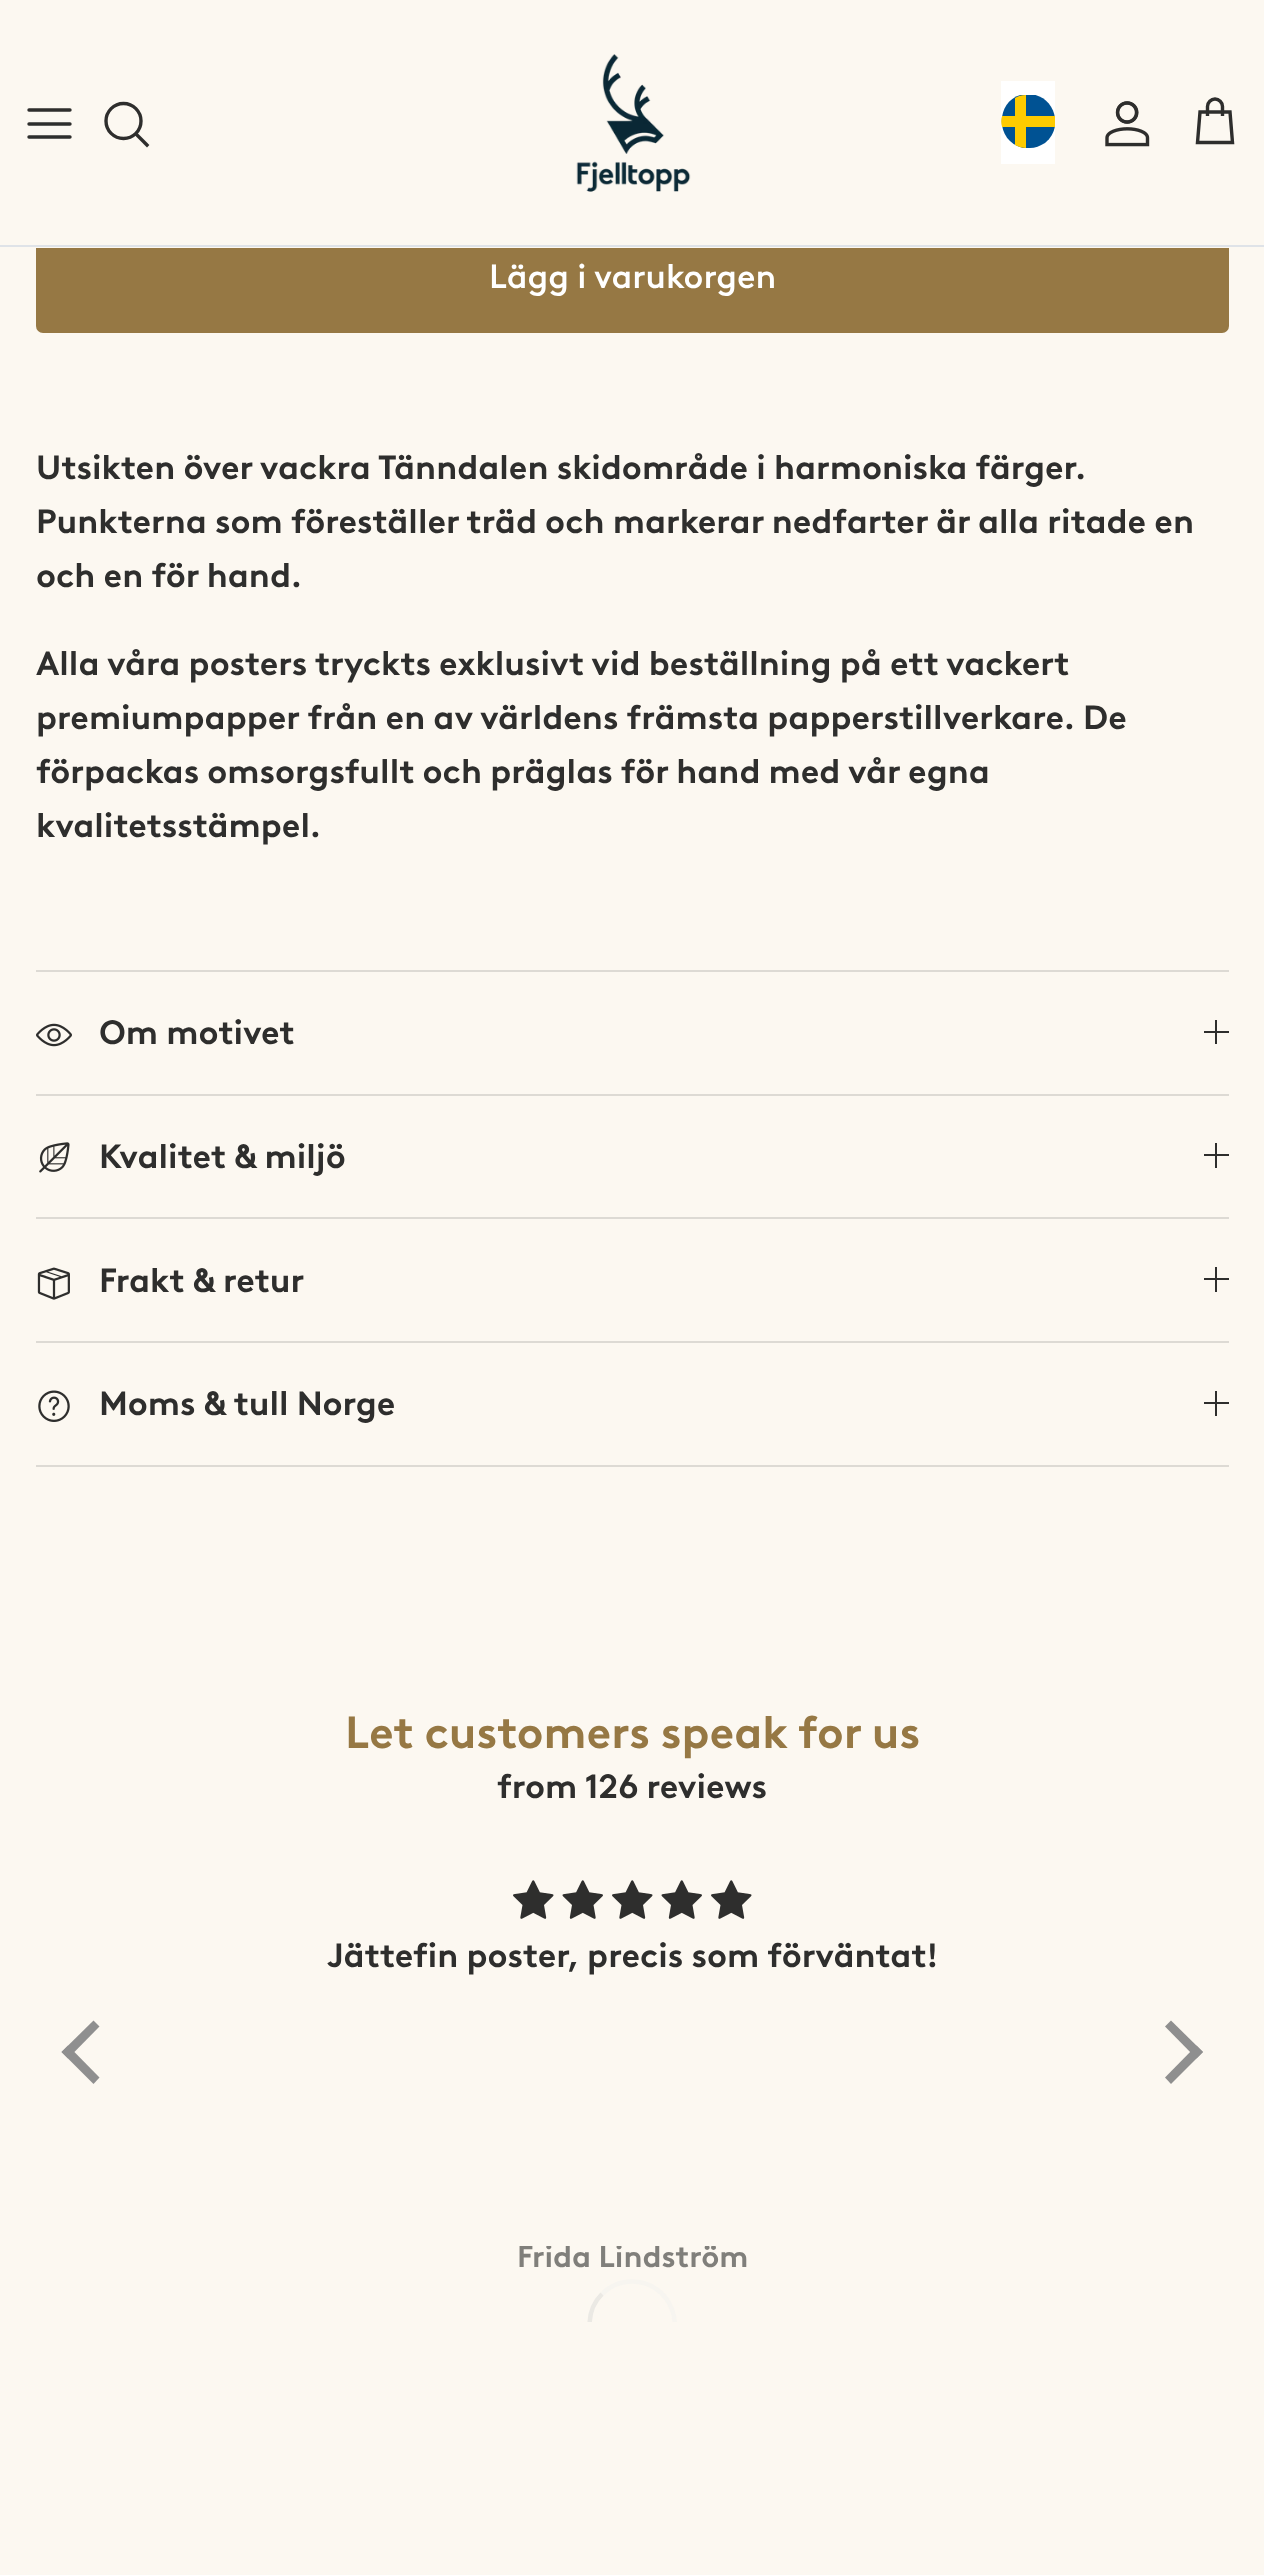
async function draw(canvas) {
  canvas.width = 1264
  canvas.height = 2575
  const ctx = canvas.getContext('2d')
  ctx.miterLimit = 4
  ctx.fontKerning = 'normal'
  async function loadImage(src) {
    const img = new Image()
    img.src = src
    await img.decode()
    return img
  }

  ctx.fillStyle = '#fcf8f1'
  ctx.fillRect(0, 0, 1264, 2575)
  ctx.fillStyle = '#967844'
  ctx.beginPath()
  ctx.roundRect(37, 228, 1191, 104, 6)
  ctx.fill()
  ctx.strokeStyle = '#967844'
  ctx.lineWidth = 2
  ctx.stroke()
  ctx.fillStyle = '#fcf8f1'
  ctx.fillRect(36, 227, 1193, 21)
  ctx.fillStyle = '#dfe3e8'
  ctx.fillRect(0, 245, 1264, 2)
  ctx.beginPath()
  ctx.moveTo(29, 124)
  ctx.lineTo(70, 124)
  ctx.moveTo(29, 110)
  ctx.lineTo(70, 110)
  ctx.moveTo(29, 137)
  ctx.lineTo(70, 137)
  ctx.strokeStyle = '#2e2e2d'
  ctx.lineWidth = 3.4
  ctx.lineCap = 'round'
  ctx.lineJoin = 'round'
  ctx.stroke()
  ctx.beginPath()
  ctx.arc(123.5, 121, 17.5, 0, 2 * Math.PI)
  ctx.stroke()
  ctx.beginPath()
  ctx.moveTo(137, 135)
  ctx.lineTo(147, 145)
  ctx.lineCap = 'square'
  ctx.lineJoin = 'miter'
  ctx.stroke()
  ctx.drawImage(await loadImage('image0.png'), 576, 54, 115, 138)
  ctx.fillStyle = '#fff'
  ctx.fillRect(1001, 81, 54, 83)
  ctx.save()
  ctx.beginPath()
  ctx.rect(1001, 95, 54, 54)
  ctx.clip()
  ctx.fillStyle = '#005293'
  ctx.beginPath()
  ctx.moveTo(1028, 94)
  ctx.bezierCurveTo(1054, 94, 1065, 127, 1045, 143)
  ctx.bezierCurveTo(1040, 146, 1035, 148, 1030, 148)
  ctx.lineTo(1023, 148)
  ctx.bezierCurveTo(992, 141, 996, 94, 1028, 94)
  ctx.closePath()
  ctx.fill()
  ctx.restore()
  ctx.fillStyle = '#fecb00'
  ctx.beginPath()
  ctx.moveTo(1026, 95)
  ctx.bezierCurveTo(1022, 95, 1018, 96, 1015, 98)
  ctx.lineTo(1015, 116)
  ctx.lineTo(1002, 116)
  ctx.bezierCurveTo(1001, 120, 1001, 123, 1002, 127)
  ctx.lineTo(1015, 127)
  ctx.lineTo(1015, 145)
  ctx.bezierCurveTo(1019, 147, 1022, 148, 1026, 148)
  ctx.lineTo(1026, 127)
  ctx.lineTo(1055, 127)
  ctx.lineTo(1055, 116)
  ctx.lineTo(1026, 116)
  ctx.closePath()
  ctx.fill()
  ctx.drawImage(await loadImage('image1.png'), 1105, 101, 45, 46)
  ctx.beginPath()
  ctx.moveTo(1222.5, 116)
  ctx.lineTo(1222.5, 106.5)
  ctx.bezierCurveTo(1222.5, 102.5, 1219, 99, 1215, 99)
  ctx.bezierCurveTo(1211, 99, 1207.5, 102.5, 1207.5, 106.5)
  ctx.lineTo(1207.5, 116)
  ctx.moveTo(1200, 112)
  ctx.lineTo(1230, 112)
  ctx.lineTo(1232.5, 142.5)
  ctx.lineTo(1197.5, 142.5)
  ctx.closePath()
  ctx.lineCap = 'butt'
  ctx.stroke()
  ctx.font = '500 33.75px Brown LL'
  ctx.fillStyle = '#fff'
  ctx.fillText('Lägg i varukorgen', 489, 288)
  ctx.font = 'bold 33.75px Brown LL'
  ctx.fillStyle = '#2e2e2d'
  ctx.fillText('Utsikten över vackra Tänndalen skidområde i harmoniska färger.', 36, 479)
  ctx.fillText('Punkterna som föreställer träd och markerar nedfarter är alla ritade en', 36, 533)
  ctx.fillText('och en för hand.', 36, 587)
  ctx.fillText('Alla våra posters tryckts exklusivt vid beställning på ett vackert', 36, 675)
  ctx.fillText('premiumpapper från en av världens främsta papperstillverkare. De', 36, 729)
  ctx.fillText('förpackas omsorgsfullt och präglas för hand med vår egna', 36, 783)
  ctx.fillText('kvalitetsstämpel.', 36, 837)
  ctx.fillStyle = '#dddad4'
  ctx.fillRect(36, 970, 1193, 2)
  ctx.fillRect(36, 1094, 1193, 2)
  ctx.drawImage(await loadImage('image2.png'), 36, 1023, 36, 24)
  ctx.fillStyle = '#2e2e2d'
  ctx.fillText('Om motivet', 99, 1044)
  ctx.fillRect(1215, 1020, 2, 24)
  ctx.fillRect(1204, 1031, 25, 2)
  ctx.fillStyle = '#dddad4'
  ctx.fillRect(36, 1217, 1193, 2)
  ctx.drawImage(await loadImage('image3.png'), 39, 1142, 31, 31)
  ctx.fillStyle = '#2e2e2d'
  ctx.fillText('Kvalitet & miljö', 99, 1168)
  ctx.fillRect(1215, 1143, 2, 25)
  ctx.fillRect(1204, 1154, 25, 2)
  ctx.fillStyle = '#dddad4'
  ctx.fillRect(36, 1341, 1193, 2)
  ctx.drawImage(await loadImage('image4.png'), 37, 1267, 33, 33)
  ctx.fillStyle = '#2e2e2d'
  ctx.fillText('Frakt & retur', 99, 1292)
  ctx.fillRect(1215, 1267, 2, 25)
  ctx.fillRect(1204, 1278, 25, 2)
  ctx.fillStyle = '#dddad4'
  ctx.fillRect(36, 1465, 1193, 2)
  ctx.drawImage(await loadImage('image5.png'), 38, 1390, 32, 32)
  ctx.fillStyle = '#2e2e2d'
  ctx.fillText('Moms & tull Norge', 99, 1415)
  ctx.fillRect(1215, 1391, 2, 25)
  ctx.fillRect(1204, 1402, 25, 2)
  ctx.font = 'bold 45px Brown LL'
  ctx.fillStyle = '#967844'
  ctx.fillText('Let customers speak for us', 345, 1748)
  ctx.font = 'bold 33.75px Brown LL'
  ctx.fillStyle = '#2e2e2d'
  ctx.fillText('from 126 reviews', 497, 1798)
  ctx.drawImage(await loadImage('image6.png'), 513, 1880, 41, 39)
  ctx.drawImage(await loadImage('image7.png'), 562, 1880, 41, 39)
  ctx.drawImage(await loadImage('image6.png'), 612, 1880, 41, 39)
  ctx.drawImage(await loadImage('image7.png'), 661, 1880, 41, 39)
  ctx.drawImage(await loadImage('image6.png'), 711, 1880, 41, 39)
  ctx.fillText('Jättefin poster, precis som förväntat!', 327, 1967)
  ctx.save()
  ctx.beginPath()
  ctx.rect(182, 2246, 903, 33)
  ctx.clip()
  ctx.font = 'bold 30.5px Brown LL'
  ctx.fillStyle = '#807f7b'
  ctx.fillText('Frida Lindström', 517, 2267)
  ctx.restore()
  ctx.save()
  ctx.beginPath()
  ctx.rect(128, 1872, 1011, 450)
  ctx.clip()
  ctx.beginPath()
  ctx.moveTo(602, 2294)
  ctx.bezierCurveTo(610, 2286, 621, 2281.5, 632, 2281.5)
  ctx.bezierCurveTo(670, 2281.5, 689, 2328, 662.5, 2354.5)
  ctx.bezierCurveTo(656.5, 2360.5, 649, 2364.5, 640.5, 2366)
  ctx.bezierCurveTo(626.5, 2369, 612, 2364.5, 602, 2354.5)
  ctx.strokeStyle = '#f7f5f0'
  ctx.lineWidth = 4.5
  ctx.stroke()
  ctx.beginPath()
  ctx.moveTo(602, 2354.5)
  ctx.bezierCurveTo(585.5, 2338, 585.5, 2310.5, 602, 2294)
  ctx.strokeStyle = '#ebe9e4'
  ctx.stroke()
  ctx.restore()
  ctx.fillStyle = '#8f8f8f'
  ctx.beginPath()
  ctx.moveTo(61.5, 2052)
  ctx.lineTo(93.5, 2020.5)
  ctx.lineTo(99.5, 2026.5)
  ctx.lineTo(68, 2058.5)
  ctx.closePath()
  ctx.fill()
  ctx.beginPath()
  ctx.moveTo(61.5, 2052)
  ctx.lineTo(68, 2045.5)
  ctx.lineTo(99.5, 2077.5)
  ctx.lineTo(93.5, 2084)
  ctx.closePath()
  ctx.fill()
  ctx.beginPath()
  ctx.moveTo(1165, 2026.5)
  ctx.lineTo(1171, 2020.5)
  ctx.lineTo(1203, 2052)
  ctx.lineTo(1196.5, 2058.5)
  ctx.closePath()
  ctx.fill()
  ctx.beginPath()
  ctx.moveTo(1165, 2077.5)
  ctx.lineTo(1196.5, 2045.5)
  ctx.lineTo(1203, 2052)
  ctx.lineTo(1171, 2084)
  ctx.closePath()
  ctx.fill()
}

draw(document.querySelector('canvas'))
